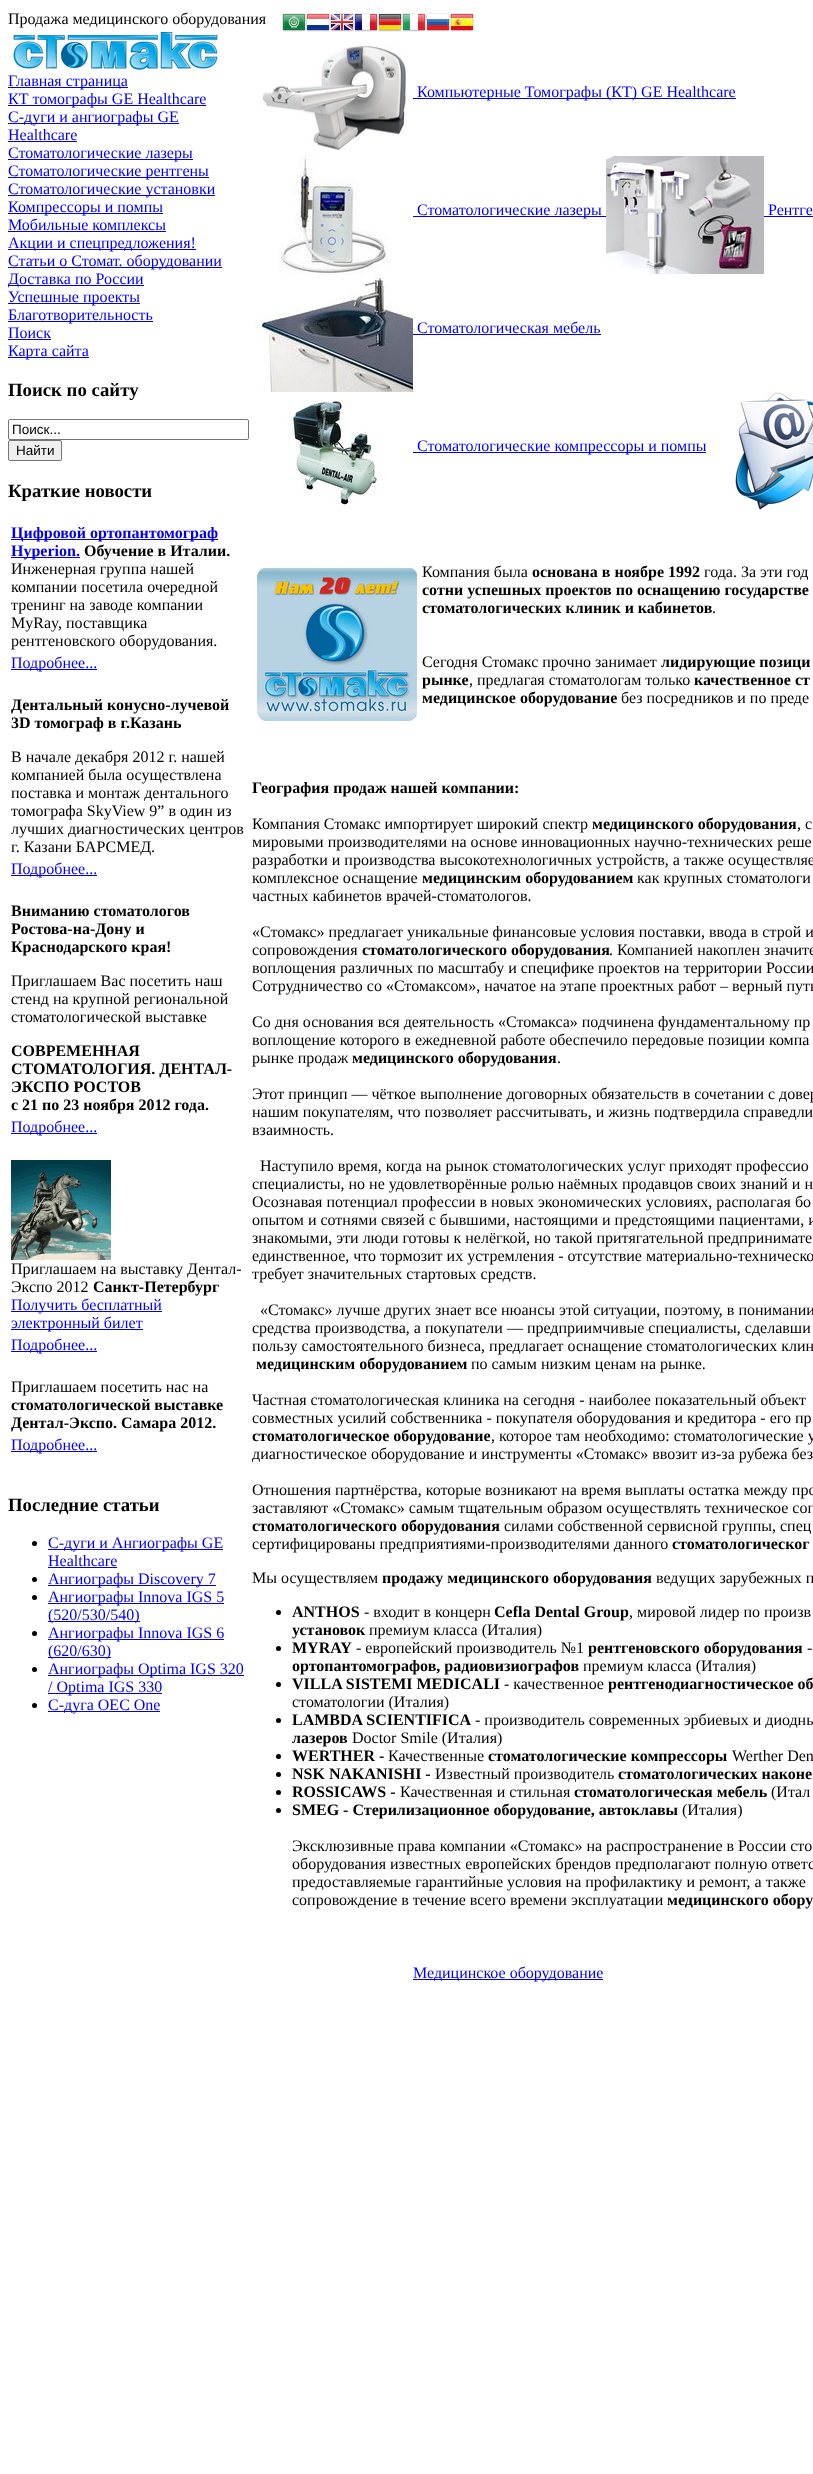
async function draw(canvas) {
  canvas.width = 813
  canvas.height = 2474
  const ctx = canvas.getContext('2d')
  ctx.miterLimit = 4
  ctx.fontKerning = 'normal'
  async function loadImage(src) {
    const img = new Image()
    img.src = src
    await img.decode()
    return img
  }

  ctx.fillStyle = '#fff'
  ctx.fillRect(0, 0, 813, 2474)
  ctx.font = '16px Liberation Serif'
  ctx.fillStyle = '#000'
  ctx.fillText('Продажа медицинского оборудования', 8, 24)
  ctx.drawImage(await loadImage('image0.png'), 282, 13, 24, 19)
  ctx.drawImage(await loadImage('image1.png'), 306, 13, 24, 19)
  ctx.drawImage(await loadImage('image2.png'), 330, 13, 24, 19)
  ctx.drawImage(await loadImage('image3.png'), 354, 13, 24, 19)
  ctx.drawImage(await loadImage('image4.png'), 378, 13, 24, 19)
  ctx.drawImage(await loadImage('image5.png'), 402, 13, 24, 19)
  ctx.drawImage(await loadImage('image6.png'), 426, 13, 24, 19)
  ctx.drawImage(await loadImage('image7.png'), 450, 13, 24, 19)
  ctx.drawImage(await loadImage('image8.png'), 13, 32, 205, 38)
  ctx.fillStyle = '#00e'
  ctx.fillRect(8, 87, 120, 1)
  ctx.fillText('Главная страница', 8, 86)
  ctx.fillRect(8, 105, 198, 1)
  ctx.fillText('КТ томографы GE Healthcare', 8, 104)
  ctx.fillRect(8, 123, 171, 1)
  ctx.fillText('С-дуги и ангиографы GE', 8, 122)
  ctx.fillText('Healthcare', 8, 140)
  ctx.fillRect(8, 141, 69, 1)
  ctx.fillRect(8, 159, 185, 1)
  ctx.fillText('Стоматологические лазеры', 8, 158)
  ctx.fillRect(8, 177, 201, 1)
  ctx.fillText('Стоматологические рентгены', 8, 176)
  ctx.fillRect(8, 195, 207, 1)
  ctx.fillText('Стоматологические установки', 8, 194)
  ctx.fillRect(8, 213, 155, 1)
  ctx.fillText('Компрессоры и помпы', 8, 212)
  ctx.fillText('Мобильные комплексы', 8, 230)
  ctx.fillRect(8, 231, 158, 1)
  ctx.fillRect(8, 249, 188, 1)
  ctx.fillText('Акции и спецпредложения!', 8, 248)
  ctx.fillRect(8, 267, 214, 1)
  ctx.fillText('Статьи о Стомат. оборудовании', 8, 266)
  ctx.fillRect(8, 285, 136, 1)
  ctx.fillText('Доставка по России', 8, 284)
  ctx.fillRect(8, 303, 132, 1)
  ctx.fillText('Успешные проекты', 8, 302)
  ctx.fillRect(8, 321, 145, 1)
  ctx.fillText('Благотворительность', 8, 320)
  ctx.fillText('Поиск', 8, 338)
  ctx.fillRect(8, 339, 43, 1)
  ctx.fillRect(8, 357, 81, 1)
  ctx.fillText('Карта сайта', 8, 356)
  ctx.font = 'bold 18.75px Liberation Serif'
  ctx.fillStyle = '#000'
  ctx.fillText('Поиск по сайту', 8, 396)
  ctx.beginPath()
  ctx.roundRect(8.5, 419.5, 240, 20, 1.5)
  ctx.strokeStyle = '#767676'
  ctx.stroke()
  ctx.font = '13.5px Liberation Sans'
  ctx.fillText('Поиск...', 12, 434)
  ctx.fillStyle = '#efefef'
  ctx.beginPath()
  ctx.roundRect(8.5, 440.5, 53, 20, 1.5)
  ctx.fill()
  ctx.stroke()
  ctx.fillStyle = '#000'
  ctx.fillText('Найти', 16, 455)
  ctx.font = 'bold 18.75px Liberation Serif'
  ctx.fillText('Краткие новости', 8, 497)
  ctx.fillStyle = '#00e'
  ctx.fillRect(11, 539, 207, 1)
  ctx.font = 'bold 16px Liberation Serif'
  ctx.fillText('Цифровой ортопантомограф', 11, 538)
  ctx.fillRect(11, 557, 69, 1)
  ctx.fillText('Hyperion.', 11, 556)
  ctx.fillStyle = '#000'
  ctx.fillText('Обучение в Италии.', 84, 556)
  ctx.font = '16px Liberation Serif'
  ctx.fillText('Инженерная группа нашей', 11, 574)
  ctx.fillText('компании посетила очередной', 11, 592)
  ctx.fillText('тренинг на заводе компании', 11, 610)
  ctx.fillText('MyRay, поставщика', 11, 628)
  ctx.fillText('рентгеновского оборудования.', 11, 646)
  ctx.fillStyle = '#00e'
  ctx.fillRect(11, 669, 86, 1)
  ctx.fillText('Подробнее...', 11, 668)
  ctx.font = 'bold 16px Liberation Serif'
  ctx.fillStyle = '#000'
  ctx.fillText('Дентальный конусно-лучевой', 11, 710)
  ctx.fillText('3D томограф в г.Казань', 11, 728)
  ctx.font = '16px Liberation Serif'
  ctx.fillText('В начале декабря 2012 г. нашей', 11, 762)
  ctx.fillText('компанией была осуществлена', 11, 780)
  ctx.fillText('поставка и монтаж дентального', 11, 798)
  ctx.fillText('томографа SkyView 9” в один из', 11, 816)
  ctx.fillText('лучших диагностических центров', 11, 834)
  ctx.fillText('г. Казани БАРСМЕД.', 11, 852)
  ctx.fillStyle = '#00e'
  ctx.fillRect(11, 875, 86, 1)
  ctx.fillText('Подробнее...', 11, 874)
  ctx.font = 'bold 16px Liberation Serif'
  ctx.fillStyle = '#000'
  ctx.fillText('Вниманию стоматологов', 11, 916)
  ctx.fillText('Ростова-на-Дону и', 11, 934)
  ctx.fillText('Краснодарского края!', 11, 952)
  ctx.font = '16px Liberation Serif'
  ctx.fillText('Приглашаем Вас посетить наш', 11, 986)
  ctx.fillText('стенд на крупной региональной', 11, 1004)
  ctx.fillText('стоматологической выставке', 11, 1022)
  ctx.font = 'bold 16px Liberation Serif'
  ctx.fillText('СОВРЕМЕННАЯ', 11, 1056)
  ctx.fillText('СТОМАТОЛОГИЯ. ДЕНТАЛ-', 11, 1074)
  ctx.fillText('ЭКСПО РОСТОВ', 11, 1092)
  ctx.fillText('с 21 по 23 ноября 2012 года.', 11, 1110)
  ctx.fillStyle = '#00e'
  ctx.fillRect(11, 1133, 86, 1)
  ctx.font = '16px Liberation Serif'
  ctx.fillText('Подробнее...', 11, 1132)
  ctx.drawImage(await loadImage('image9.png'), 11, 1160, 100, 100)
  ctx.fillStyle = '#000'
  ctx.fillText('Приглашаем на выставку Дентал-', 11, 1274)
  ctx.fillText('Экспо 2012', 11, 1292)
  ctx.font = 'bold 16px Liberation Serif'
  ctx.fillText('Санкт-Петербург', 93, 1292)
  ctx.fillStyle = '#00e'
  ctx.fillRect(11, 1311, 151, 1)
  ctx.font = '16px Liberation Serif'
  ctx.fillText('Получить бесплатный', 11, 1310)
  ctx.fillRect(11, 1329, 132, 1)
  ctx.fillText('электронный билет', 11, 1328)
  ctx.fillRect(11, 1351, 86, 1)
  ctx.fillText('Подробнее...', 11, 1350)
  ctx.fillStyle = '#000'
  ctx.fillText('Приглашаем посетить нас на', 11, 1392)
  ctx.font = 'bold 16px Liberation Serif'
  ctx.fillText('стоматологической выставке', 11, 1410)
  ctx.fillText('Дентал-Экспо. Самара 2012.', 11, 1428)
  ctx.fillStyle = '#00e'
  ctx.fillRect(11, 1451, 86, 1)
  ctx.font = '16px Liberation Serif'
  ctx.fillText('Подробнее...', 11, 1450)
  ctx.font = 'bold 18.75px Liberation Serif'
  ctx.fillStyle = '#000'
  ctx.fillText('Последние статьи', 8, 1511)
  ctx.beginPath()
  ctx.arc(34.5, 1543.5, 2.5, 0, 2 * Math.PI)
  ctx.fill()
  ctx.fillStyle = '#00e'
  ctx.fillRect(48, 1549, 175, 1)
  ctx.font = '16px Liberation Serif'
  ctx.fillText('С-дуги и Ангиографы GE', 48, 1548)
  ctx.fillText('Healthcare', 48, 1566)
  ctx.fillRect(48, 1567, 69, 1)
  ctx.fillStyle = '#000'
  ctx.beginPath()
  ctx.arc(34.5, 1579.5, 2.5, 0, 2 * Math.PI)
  ctx.fill()
  ctx.fillStyle = '#00e'
  ctx.fillRect(48, 1585, 168, 1)
  ctx.fillText('Ангиографы Discovery 7', 48, 1584)
  ctx.fillStyle = '#000'
  ctx.beginPath()
  ctx.arc(34.5, 1597.5, 2.5, 0, 2 * Math.PI)
  ctx.fill()
  ctx.fillStyle = '#00e'
  ctx.fillRect(48, 1603, 176, 1)
  ctx.fillText('Ангиографы Innova IGS 5', 48, 1602)
  ctx.fillRect(48, 1621, 92, 1)
  ctx.fillText('(520/530/540)', 48, 1620)
  ctx.fillStyle = '#000'
  ctx.beginPath()
  ctx.arc(34.5, 1633.5, 2.5, 0, 2 * Math.PI)
  ctx.fill()
  ctx.fillStyle = '#00e'
  ctx.fillRect(48, 1639, 176, 1)
  ctx.fillText('Ангиографы Innova IGS 6', 48, 1638)
  ctx.fillRect(48, 1657, 63, 1)
  ctx.fillText('(620/630)', 48, 1656)
  ctx.fillStyle = '#000'
  ctx.beginPath()
  ctx.arc(34.5, 1669.5, 2.5, 0, 2 * Math.PI)
  ctx.fill()
  ctx.fillStyle = '#00e'
  ctx.fillRect(48, 1675, 196, 1)
  ctx.fillText('Ангиографы Optima IGS 320', 48, 1674)
  ctx.fillRect(48, 1693, 114, 1)
  ctx.fillText('/ Optima IGS 330', 48, 1692)
  ctx.fillStyle = '#000'
  ctx.beginPath()
  ctx.arc(34.5, 1705.5, 2.5, 0, 2 * Math.PI)
  ctx.fill()
  ctx.fillStyle = '#00e'
  ctx.fillRect(48, 1711, 112, 1)
  ctx.fillText('C-дуга OEC One', 48, 1710)
  ctx.drawImage(await loadImage('image10.png'), 262, 46, 145, 104)
  ctx.fillRect(413, 98, 323, 1)
  ctx.fillText('Компьютерные Томографы (КТ) GE Healthcare', 417, 97)
  ctx.drawImage(await loadImage('image11.png'), 279, 156, 112, 118)
  ctx.fillRect(413, 216, 193, 1)
  ctx.fillText('Стоматологические лазеры', 417, 215)
  ctx.drawImage(await loadImage('image12.png'), 606, 156, 158, 118)
  ctx.fillText('Рентге', 768, 215)
  ctx.fillRect(764, 216, 49, 1)
  ctx.drawImage(await loadImage('image13.png'), 255, 274, 158, 118)
  ctx.fillText('Стоматологическая мебель', 417, 333)
  ctx.fillRect(413, 334, 188, 1)
  ctx.drawImage(await loadImage('image14.png'), 287, 400, 96, 107)
  ctx.fillRect(413, 452, 293, 1)
  ctx.fillText('Стоматологические компрессоры и помпы', 417, 451)
  ctx.drawImage(await loadImage('image15.png'), 706, 392, 107, 118)
  ctx.drawImage(await loadImage('image16.png'), 257, 568, 160, 153)
  ctx.fillStyle = '#000'
  ctx.fillText('Компания была', 422, 577)
  ctx.font = 'bold 16px Liberation Serif'
  ctx.fillText('основана в ноябре 1992', 532, 577)
  ctx.font = '16px Liberation Serif'
  ctx.fillText('года. За эти год', 704, 577)
  ctx.font = 'bold 16px Liberation Serif'
  ctx.fillText('сотни успешных проектов по оснащению государстве', 422, 595)
  ctx.fillText('стоматологических клиник и кабинетов', 422, 613)
  ctx.font = '16px Liberation Serif'
  ctx.fillText('.', 712, 613)
  ctx.fillText('Сегодня Стомакс прочно занимает', 422, 667)
  ctx.font = 'bold 16px Liberation Serif'
  ctx.fillText('лидирующие позици', 661, 667)
  ctx.fillText('рынке', 422, 685)
  ctx.font = '16px Liberation Serif'
  ctx.fillText(', предлагая стоматологам только', 469, 685)
  ctx.font = 'bold 16px Liberation Serif'
  ctx.fillText('качественное ст', 694, 685)
  ctx.fillText('медицинское оборудование', 422, 703)
  ctx.font = '16px Liberation Serif'
  ctx.fillText('без посредников и по преде', 621, 703)
  ctx.font = 'bold 16px Liberation Serif'
  ctx.fillText('География продаж нашей компании:', 252, 793)
  ctx.font = '16px Liberation Serif'
  ctx.fillText('Компания Стомакс импортирует широкий спектр', 252, 829)
  ctx.font = 'bold 16px Liberation Serif'
  ctx.fillText('медицинского оборудования', 592, 829)
  ctx.font = '16px Liberation Serif'
  ctx.fillText(', с', 797, 829)
  ctx.fillText('мировыми производителями на основе инновационных научно-технических реше', 252, 847)
  ctx.fillText('разработки и производства высокотехнологичных устройств, а также осуществляе', 252, 865)
  ctx.fillText('комплексное оснащение', 252, 883)
  ctx.font = 'bold 16px Liberation Serif'
  ctx.fillText('медицинским оборудованием', 422, 883)
  ctx.font = '16px Liberation Serif'
  ctx.fillText('как крупных стоматологи', 637, 883)
  ctx.fillText('частных кабинетов врачей-стоматологов.', 252, 901)
  ctx.fillText('«Стомакс» предлагает уникальные финансовые условия поставки, ввода в строй и', 252, 937)
  ctx.fillText('сопровождения', 252, 955)
  ctx.font = 'bold 16px Liberation Serif'
  ctx.fillText('стоматологического оборудования', 362, 955)
  ctx.font = '16px Liberation Serif'
  ctx.fillText('. Компанией накоплен значите', 609, 955)
  ctx.fillText('воплощения различных по масштабу и специфике проектов на территории России', 252, 973)
  ctx.fillText('Сотрудничество со «Стомаксом», начатое на этапе проектных работ – верный путь', 252, 991)
  ctx.fillText('Со дня основания вся деятельность «Стомакса» подчинена фундаментальному пр', 252, 1027)
  ctx.fillText('воплощение которого в ежедневной работе обеспечило передовые позиции компа', 252, 1045)
  ctx.fillText('рынке продаж', 252, 1063)
  ctx.font = 'bold 16px Liberation Serif'
  ctx.fillText('медицинского оборудования', 352, 1063)
  ctx.font = '16px Liberation Serif'
  ctx.fillText('.', 557, 1063)
  ctx.fillText('Этот принцип — чёткое выполнение договорных обязательств в сочетании с довер', 252, 1099)
  ctx.fillText('нашим покупателям, что позволяет рассчитывать, и жизнь подтвердила справедли', 252, 1117)
  ctx.fillText('взаимность.', 252, 1135)
  ctx.fillText('Наступило время, когда на рынок стоматологических услуг приходят профессио', 260, 1171)
  ctx.fillText('специалисты, но не удовлетворённые ролью наёмных продавцов своих знаний и н', 252, 1189)
  ctx.fillText('Осознавая потенциал профессии в новых экономических условиях, располагая бо', 252, 1207)
  ctx.fillText('опытом и сотнями связей с бывшими, настоящими и предстоящими пациентами, и', 252, 1225)
  ctx.fillText('знакомыми, эти люди готовы к нелёгкой, но такой притягательной предпринимате', 252, 1243)
  ctx.fillText('единственное, что тормозит их устремления - отсутствие материально-техническо', 252, 1261)
  ctx.fillText('требует значительных стартовых средств.', 252, 1279)
  ctx.fillText('«Стомакс» лучше других знает все нюансы этой ситуации, поэтому, в понимании', 260, 1315)
  ctx.fillText('средства производства, а покупатели — предприимчивые специалисты, сделавши', 252, 1333)
  ctx.fillText('пользу самостоятельного бизнеса, предлагает оснащение стоматологических клин', 252, 1351)
  ctx.font = 'bold 16px Liberation Serif'
  ctx.fillText('медицинским оборудованием', 256, 1369)
  ctx.font = '16px Liberation Serif'
  ctx.fillText('по самым низким ценам на рынке.', 471, 1369)
  ctx.fillText('Частная стоматологическая клиника на сегодня - наиболее показательный объект', 252, 1405)
  ctx.fillText('совместных усилий собственника - покупателя оборудования и кредитора - его пр', 252, 1423)
  ctx.font = 'bold 16px Liberation Serif'
  ctx.fillText('стоматологическое оборудование', 252, 1441)
  ctx.font = '16px Liberation Serif'
  ctx.fillText(', которое там необходимо: стоматологические у', 491, 1441)
  ctx.fillText('диагностическое оборудование и инструменты «Стомакс» ввозит из-за рубежа без', 252, 1459)
  ctx.fillText('Отношения партнёрства, которые возникают на время выплаты остатка между про', 252, 1495)
  ctx.fillText('заставляют «Стомакс» самым тщательным образом осуществлять техническое соп', 252, 1513)
  ctx.font = 'bold 16px Liberation Serif'
  ctx.fillText('стоматологического оборудования', 252, 1531)
  ctx.font = '16px Liberation Serif'
  ctx.fillText('силами собственной сервисной группы, спец', 504, 1531)
  ctx.fillText('сертифицированы предприятиями-производителями данного', 252, 1549)
  ctx.font = 'bold 16px Liberation Serif'
  ctx.fillText('стоматологическог', 672, 1549)
  ctx.font = '16px Liberation Serif'
  ctx.fillText('Мы осуществляем', 252, 1583)
  ctx.font = 'bold 16px Liberation Serif'
  ctx.fillText('продажу медицинского оборудования', 382, 1583)
  ctx.font = '16px Liberation Serif'
  ctx.fillText('ведущих зарубежных п', 656, 1583)
  ctx.beginPath()
  ctx.arc(278.5, 1612.5, 2.5, 0, 2 * Math.PI)
  ctx.fill()
  ctx.font = 'bold 16px Liberation Serif'
  ctx.fillText('ANTHOS', 292, 1617)
  ctx.font = '16px Liberation Serif'
  ctx.fillText('- входит в концерн', 364, 1617)
  ctx.font = 'bold 16px Liberation Serif'
  ctx.fillText('Cefla Dental Group', 494, 1617)
  ctx.font = '16px Liberation Serif'
  ctx.fillText(', мировой лидер по произв', 629, 1617)
  ctx.font = 'bold 16px Liberation Serif'
  ctx.fillText('установок', 292, 1635)
  ctx.font = '16px Liberation Serif'
  ctx.fillText('премиум класса (Италия)', 369, 1635)
  ctx.beginPath()
  ctx.arc(278.5, 1648.5, 2.5, 0, 2 * Math.PI)
  ctx.fill()
  ctx.font = 'bold 16px Liberation Serif'
  ctx.fillText('MYRAY', 292, 1653)
  ctx.font = '16px Liberation Serif'
  ctx.fillText('- европейский производитель №1', 356, 1653)
  ctx.font = 'bold 16px Liberation Serif'
  ctx.fillText('рентгеновского оборудования', 588, 1653)
  ctx.font = '16px Liberation Serif'
  ctx.fillText('-', 807, 1653)
  ctx.font = 'bold 16px Liberation Serif'
  ctx.fillText('ортопантомографов, радиовизиографов', 292, 1671)
  ctx.font = '16px Liberation Serif'
  ctx.fillText('премиум класса (Италия)', 583, 1671)
  ctx.beginPath()
  ctx.arc(278.5, 1684.5, 2.5, 0, 2 * Math.PI)
  ctx.fill()
  ctx.font = 'bold 16px Liberation Serif'
  ctx.fillText('VILLA SISTEMI MEDICALI', 292, 1689)
  ctx.font = '16px Liberation Serif'
  ctx.fillText('- качественное', 504, 1689)
  ctx.font = 'bold 16px Liberation Serif'
  ctx.fillText('рентгенодиагностическое об', 608, 1689)
  ctx.font = '16px Liberation Serif'
  ctx.fillText('стоматологии (Италия)', 292, 1707)
  ctx.beginPath()
  ctx.arc(278.5, 1720.5, 2.5, 0, 2 * Math.PI)
  ctx.fill()
  ctx.font = 'bold 16px Liberation Serif'
  ctx.fillText('LAMBDA SCIENTIFICA', 292, 1725)
  ctx.font = '16px Liberation Serif'
  ctx.fillText('- производитель современных эрбиевых и диодны', 475, 1725)
  ctx.font = 'bold 16px Liberation Serif'
  ctx.fillText('лазеров', 292, 1743)
  ctx.font = '16px Liberation Serif'
  ctx.fillText('Doctor Smile (Италия)', 352, 1743)
  ctx.beginPath()
  ctx.arc(278.5, 1756.5, 2.5, 0, 2 * Math.PI)
  ctx.fill()
  ctx.font = 'bold 16px Liberation Serif'
  ctx.fillText('WERTHER -', 292, 1761)
  ctx.font = '16px Liberation Serif'
  ctx.fillText('Качественные', 388, 1761)
  ctx.font = 'bold 16px Liberation Serif'
  ctx.fillText('стоматологические компрессоры', 488, 1761)
  ctx.font = '16px Liberation Serif'
  ctx.fillText('Werther Den', 732, 1761)
  ctx.beginPath()
  ctx.arc(278.5, 1774.5, 2.5, 0, 2 * Math.PI)
  ctx.fill()
  ctx.font = 'bold 16px Liberation Serif'
  ctx.fillText('NSK NAKANISHI -', 292, 1779)
  ctx.font = '16px Liberation Serif'
  ctx.fillText('Известный производитель', 435, 1779)
  ctx.font = 'bold 16px Liberation Serif'
  ctx.fillText('стоматологических наконе', 618, 1779)
  ctx.beginPath()
  ctx.arc(278.5, 1792.5, 2.5, 0, 2 * Math.PI)
  ctx.fill()
  ctx.fillText('ROSSICAWS -', 292, 1797)
  ctx.font = '16px Liberation Serif'
  ctx.fillText('Качественная и стильная', 400, 1797)
  ctx.font = 'bold 16px Liberation Serif'
  ctx.fillText('стоматологическая мебель', 574, 1797)
  ctx.font = '16px Liberation Serif'
  ctx.fillText('(Итал', 771, 1797)
  ctx.beginPath()
  ctx.arc(278.5, 1810.5, 2.5, 0, 2 * Math.PI)
  ctx.fill()
  ctx.font = 'bold 16px Liberation Serif'
  ctx.fillText('SMEG - Стерилизационное оборудование, автоклавы', 292, 1815)
  ctx.font = '16px Liberation Serif'
  ctx.fillText('(Италия)', 682, 1815)
  ctx.fillText('Эксклюзивные права компании «Стомакс» на распространение в России сто', 292, 1851)
  ctx.fillText('оборудования известных европейских брендов предполагают полную ответс', 292, 1869)
  ctx.fillText('предоставляемые гарантийные условия на профилактику и ремонт, а также', 292, 1887)
  ctx.fillText('сопровождение в течение всего времени эксплуатации', 292, 1905)
  ctx.font = 'bold 16px Liberation Serif'
  ctx.fillText('медицинского обору', 667, 1905)
  ctx.fillStyle = '#00e'
  ctx.fillRect(413, 1979, 190, 1)
  ctx.font = '16px Liberation Serif'
  ctx.fillText('Медицинское оборудование', 413, 1978)
}

draw(document.querySelector('canvas'))
